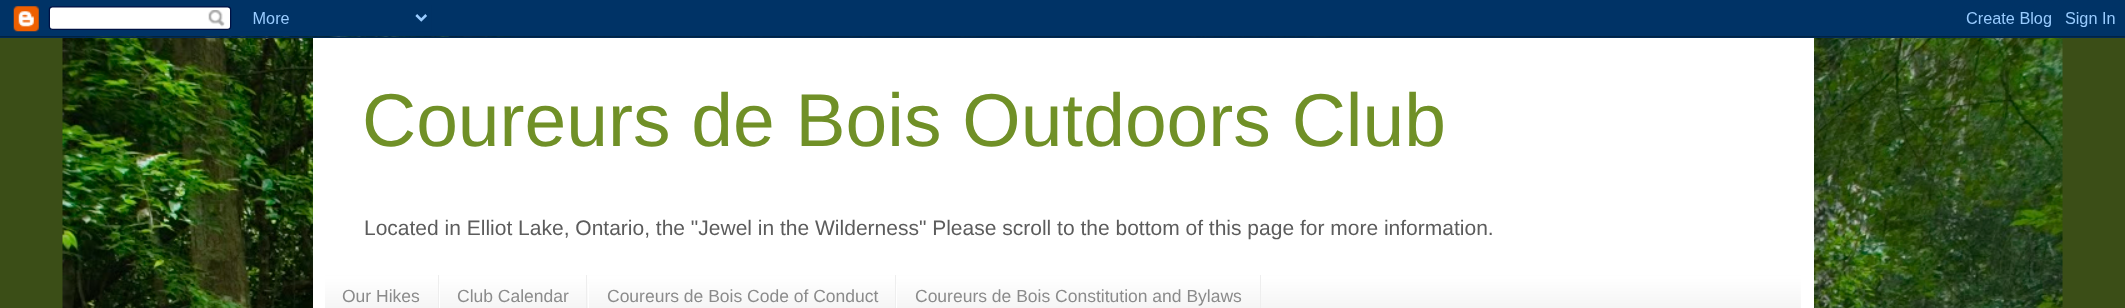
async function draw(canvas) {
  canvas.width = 2125
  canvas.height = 308
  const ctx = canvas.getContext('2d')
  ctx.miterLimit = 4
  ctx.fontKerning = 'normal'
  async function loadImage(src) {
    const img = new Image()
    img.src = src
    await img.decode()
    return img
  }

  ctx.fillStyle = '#3b4e17'
  ctx.fillRect(0, 0, 2125, 308)
  ctx.drawImage(await loadImage('image0.png'), 62, 36, 2001, 272)
  ctx.fillStyle = '#00000026'
  ctx.filter = 'blur(25px)'
  ctx.beginPath()
  ctx.rect(313, 38, 1501, 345)
  ctx.fill()
  ctx.filter = 'none'
  ctx.drawImage(await loadImage('image1.png'), 0, 0, 2125, 38)
  ctx.fillStyle = '#fff'
  ctx.fillRect(313, 38, 1501, 270)
  ctx.font = '75px Liberation Sans'
  ctx.fillStyle = '#709027'
  ctx.fillText('Coureurs de Bois Outdoors Club', 362, 146)
  ctx.font = '21px Liberation Sans'
  ctx.fillStyle = '#5c5c5c'
  ctx.fillText('Located in Elliot Lake, Ontario, the "Jewel in the Wilderness" Please scroll to the bottom of this page for more information.', 364, 235)
  ctx.fillStyle = '#f0f0f0'
  ctx.fillRect(325, 275, 1476, 33)
  ctx.drawImage(await loadImage('image2.png'), 325, 275, 1476, 33)
  ctx.fillStyle = '#eee'
  ctx.fillRect(438, 275, 1, 33)
  ctx.font = '17.5px Liberation Sans'
  ctx.fillStyle = '#8b8b8b'
  ctx.fillText('Our Hikes', 342, 302)
  ctx.fillStyle = '#eee'
  ctx.fillRect(586, 275, 1, 33)
  ctx.fillStyle = '#fff'
  ctx.fillRect(439, 284, 1, 24)
  ctx.fillStyle = '#8b8b8b'
  ctx.fillText('Club Calendar', 457, 302)
  ctx.fillStyle = '#eee'
  ctx.fillRect(895, 275, 1, 33)
  ctx.fillStyle = '#fff'
  ctx.fillRect(588, 284, 1, 24)
  ctx.fillStyle = '#8b8b8b'
  ctx.fillText('Coureurs de Bois Code of Conduct', 607, 302)
  ctx.fillStyle = '#eee'
  ctx.fillRect(1260, 275, 1, 33)
  ctx.fillStyle = '#fff'
  ctx.fillRect(896, 284, 1, 24)
  ctx.fillStyle = '#8b8b8b'
  ctx.fillText('Coureurs de Bois Constitution and Bylaws', 915, 302)
}

draw(document.querySelector('canvas'))
